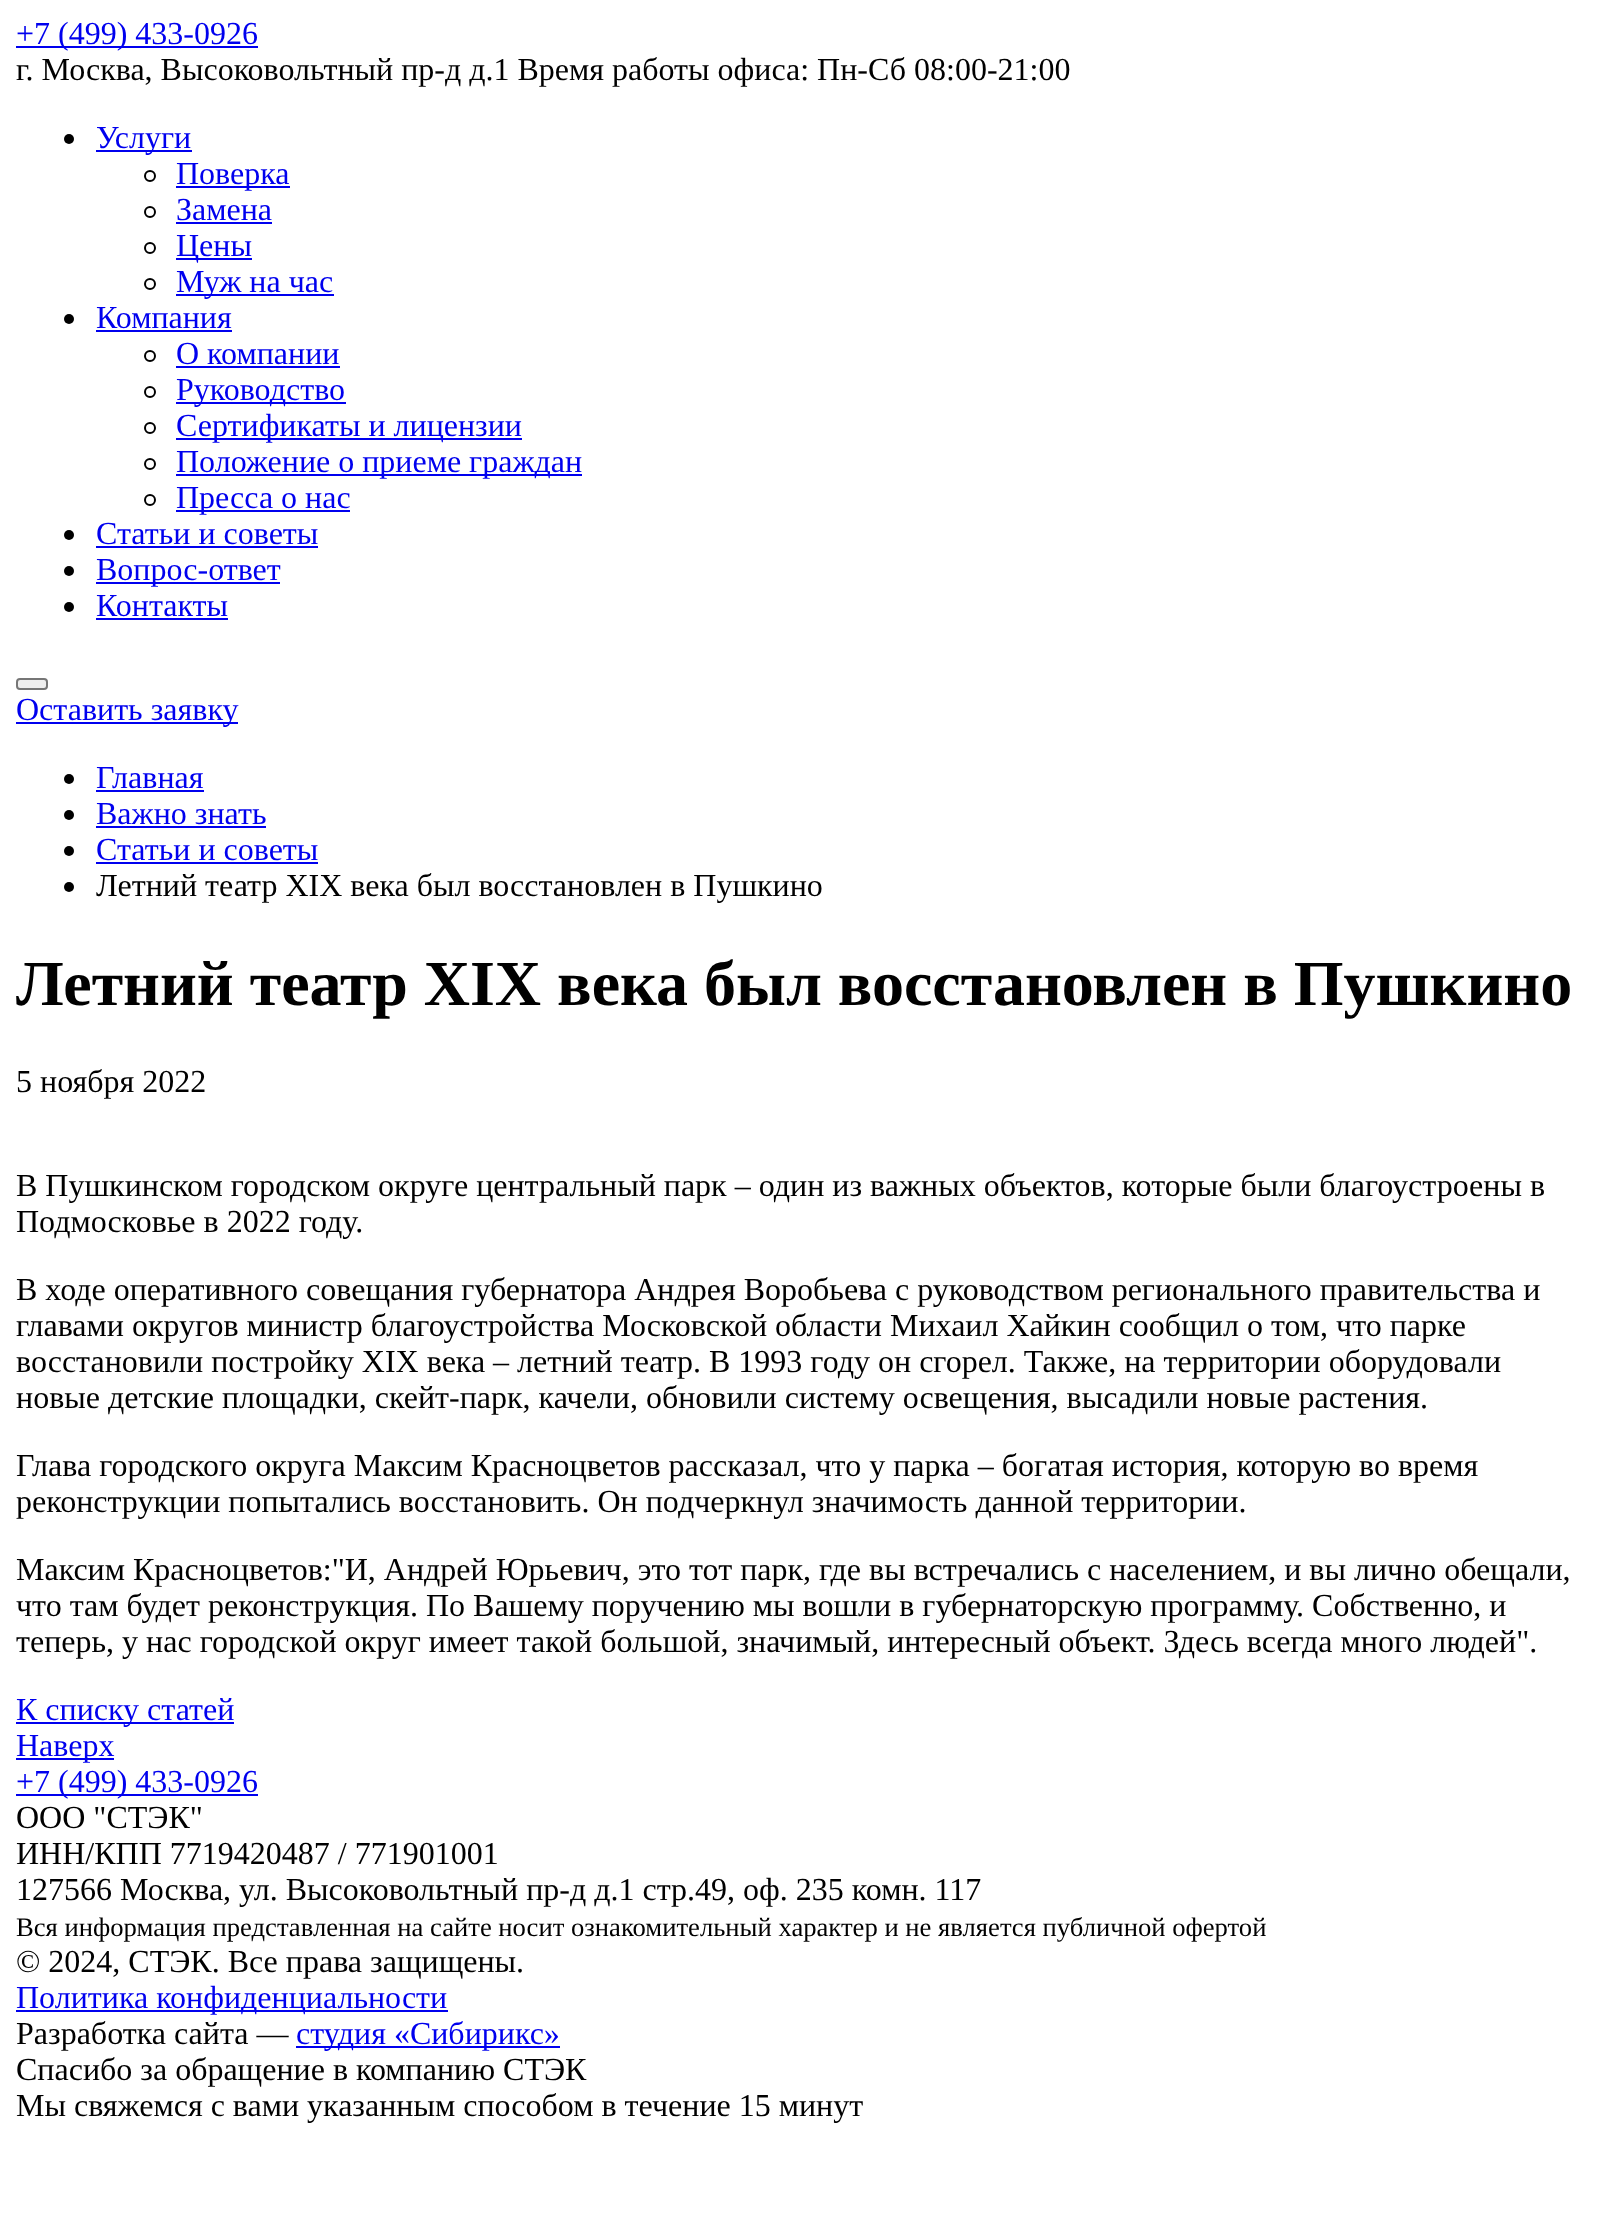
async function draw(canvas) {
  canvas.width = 1608
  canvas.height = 2216
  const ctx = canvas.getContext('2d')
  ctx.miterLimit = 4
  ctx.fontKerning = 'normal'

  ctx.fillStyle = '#fff'
  ctx.fillRect(0, 0, 1608, 2216)
  ctx.fillStyle = '#00e'
  ctx.fillRect(16, 46, 242, 2)
  ctx.font = '32px Liberation Serif'
  ctx.fillText('+7 (499) 433-0926', 16, 44)
  ctx.fillStyle = '#000'
  ctx.fillText('г. Москва, Высоковольтный пр-д д.1 Время работы офиса: Пн-Сб 08:00-21:00', 16, 80)
  ctx.beginPath()
  ctx.arc(69, 139, 5, 0, 2 * Math.PI)
  ctx.fill()
  ctx.fillStyle = '#00e'
  ctx.fillRect(96, 150, 96, 2)
  ctx.fillText('Услуги', 96, 148)
  ctx.beginPath()
  ctx.arc(150, 176, 5, 0, 2 * Math.PI)
  ctx.strokeStyle = '#000'
  ctx.lineWidth = 2
  ctx.stroke()
  ctx.fillRect(176, 186, 114, 2)
  ctx.fillText('Поверка', 176, 184)
  ctx.beginPath()
  ctx.arc(150, 212, 5, 0, 2 * Math.PI)
  ctx.stroke()
  ctx.fillText('Замена', 176, 220)
  ctx.fillRect(176, 222, 96, 2)
  ctx.beginPath()
  ctx.arc(150, 248, 5, 0, 2 * Math.PI)
  ctx.stroke()
  ctx.fillRect(176, 258, 76, 2)
  ctx.fillText('Цены', 176, 256)
  ctx.beginPath()
  ctx.arc(150, 284, 5, 0, 2 * Math.PI)
  ctx.stroke()
  ctx.fillRect(176, 294, 158, 2)
  ctx.fillText('Муж на час', 176, 292)
  ctx.fillStyle = '#000'
  ctx.beginPath()
  ctx.arc(69, 319, 5, 0, 2 * Math.PI)
  ctx.fill()
  ctx.fillStyle = '#00e'
  ctx.fillText('Компания', 96, 328)
  ctx.fillRect(96, 330, 136, 2)
  ctx.beginPath()
  ctx.arc(150, 356, 5, 0, 2 * Math.PI)
  ctx.stroke()
  ctx.fillText('О компании', 176, 364)
  ctx.fillRect(176, 366, 164, 2)
  ctx.beginPath()
  ctx.arc(150, 392, 5, 0, 2 * Math.PI)
  ctx.stroke()
  ctx.fillRect(176, 402, 170, 2)
  ctx.fillText('Руководство', 176, 400)
  ctx.beginPath()
  ctx.arc(150, 428, 5, 0, 2 * Math.PI)
  ctx.stroke()
  ctx.fillRect(176, 438, 346, 2)
  ctx.fillText('Сертификаты и лицензии', 176, 436)
  ctx.beginPath()
  ctx.arc(150, 464, 5, 0, 2 * Math.PI)
  ctx.stroke()
  ctx.fillRect(176, 474, 406, 2)
  ctx.fillText('Положение о приеме граждан', 176, 472)
  ctx.beginPath()
  ctx.arc(150, 500, 5, 0, 2 * Math.PI)
  ctx.stroke()
  ctx.fillRect(176, 510, 174, 2)
  ctx.fillText('Пресса о нас', 176, 508)
  ctx.fillStyle = '#000'
  ctx.beginPath()
  ctx.arc(69, 535, 5, 0, 2 * Math.PI)
  ctx.fill()
  ctx.fillStyle = '#00e'
  ctx.fillText('Статьи и советы', 96, 544)
  ctx.fillRect(96, 546, 222, 2)
  ctx.fillStyle = '#000'
  ctx.beginPath()
  ctx.arc(69, 571, 5, 0, 2 * Math.PI)
  ctx.fill()
  ctx.fillStyle = '#00e'
  ctx.fillRect(96, 582, 184, 2)
  ctx.fillText('Вопрос-ответ', 96, 580)
  ctx.fillStyle = '#000'
  ctx.beginPath()
  ctx.arc(69, 607, 5, 0, 2 * Math.PI)
  ctx.fill()
  ctx.fillStyle = '#00e'
  ctx.fillText('Контакты', 96, 616)
  ctx.fillRect(96, 618, 132, 2)
  ctx.fillStyle = '#efefef'
  ctx.beginPath()
  ctx.roundRect(17, 679, 30, 10, 3)
  ctx.fill()
  ctx.strokeStyle = '#767676'
  ctx.stroke()
  ctx.fillStyle = '#00e'
  ctx.fillRect(16, 722, 222, 2)
  ctx.fillText('Оставить заявку', 16, 720)
  ctx.fillStyle = '#000'
  ctx.beginPath()
  ctx.arc(69, 779, 5, 0, 2 * Math.PI)
  ctx.fill()
  ctx.fillStyle = '#00e'
  ctx.fillText('Главная', 96, 788)
  ctx.fillRect(96, 790, 108, 2)
  ctx.fillStyle = '#000'
  ctx.beginPath()
  ctx.arc(69, 815, 5, 0, 2 * Math.PI)
  ctx.fill()
  ctx.fillStyle = '#00e'
  ctx.fillText('Важно знать', 96, 824)
  ctx.fillRect(96, 826, 170, 2)
  ctx.fillStyle = '#000'
  ctx.beginPath()
  ctx.arc(69, 851, 5, 0, 2 * Math.PI)
  ctx.fill()
  ctx.fillStyle = '#00e'
  ctx.fillText('Статьи и советы', 96, 860)
  ctx.fillRect(96, 862, 222, 2)
  ctx.fillStyle = '#000'
  ctx.beginPath()
  ctx.arc(69, 887, 5, 0, 2 * Math.PI)
  ctx.fill()
  ctx.fillText('Летний театр XIX века был восстановлен в Пушкино', 96, 896)
  ctx.font = 'bold 64px Liberation Serif'
  ctx.fillText('Летний театр XIX века был восстановлен в Пушкино', 16, 1005)
  ctx.font = '32px Liberation Serif'
  ctx.fillText('5 ноября 2022', 16, 1092)
  ctx.fillText('В Пушкинском городском округе центральный парк – один из важных объектов, которые были благоустроены в', 16, 1196)
  ctx.fillText('Подмосковье в 2022 году.', 16, 1232)
  ctx.fillText('В ходе оперативного совещания губернатора Андрея Воробьева с руководством регионального правительства и', 16, 1300)
  ctx.fillText('главами округов министр благоустройства Московской области Михаил Хайкин сообщил о том, что парке', 16, 1336)
  ctx.fillText('восстановили постройку XIX века – летний театр. В 1993 году он сгорел. Также, на территории оборудовали', 16, 1372)
  ctx.fillText('новые детские площадки, скейт-парк, качели, обновили систему освещения, высадили новые растения.', 16, 1408)
  ctx.fillText('Глава городского округа Максим Красноцветов рассказал, что у парка – богатая история, которую во время', 16, 1476)
  ctx.fillText('реконструкции попытались восстановить. Он подчеркнул значимость данной территории.', 16, 1512)
  ctx.fillText('Максим Красноцветов:"И, Андрей Юрьевич, это тот парк, где вы встречались с населением, и вы лично обещали,', 16, 1580)
  ctx.fillText('что там будет реконструкция. По Вашему поручению мы вошли в губернаторскую программу. Собственно, и', 16, 1616)
  ctx.fillText('теперь, у нас городской округ имеет такой большой, значимый, интересный объект. Здесь всегда много людей".', 16, 1652)
  ctx.fillStyle = '#00e'
  ctx.fillRect(16, 1722, 218, 2)
  ctx.fillText('К списку статей', 16, 1720)
  ctx.fillRect(16, 1758, 98, 2)
  ctx.fillText('Наверх', 16, 1756)
  ctx.fillRect(16, 1794, 242, 2)
  ctx.fillText('+7 (499) 433-0926', 16, 1792)
  ctx.fillStyle = '#000'
  ctx.fillText('ООО "СТЭК"', 16, 1828)
  ctx.fillText('ИНН/КПП 7719420487 / 771901001', 16, 1864)
  ctx.fillText('127566 Москва, ул. Высоковольтный пр-д д.1 стр.49, оф. 235 комн. 117', 16, 1900)
  ctx.font = '26.65px Liberation Serif'
  ctx.fillText('Вся информация представленная на сайте носит ознакомительный характер и не является публичной офертой', 16, 1936)
  ctx.font = '32px Liberation Serif'
  ctx.fillText('© 2024, СТЭК. Все права защищены.', 16, 1972)
  ctx.fillStyle = '#00e'
  ctx.fillRect(16, 2010, 432, 2)
  ctx.fillText('Политика конфиденциальности', 16, 2008)
  ctx.fillStyle = '#000'
  ctx.fillText('Разработка сайта —', 16, 2044)
  ctx.fillStyle = '#00e'
  ctx.fillRect(296, 2046, 264, 2)
  ctx.fillText('студия «Сибирикс»', 296, 2044)
  ctx.fillStyle = '#000'
  ctx.fillText('Спасибо за обращение в компанию СТЭК', 16, 2080)
  ctx.fillText('Мы свяжемся с вами указанным способом в течение 15 минут', 16, 2116)
}

draw(document.querySelector('canvas'))
